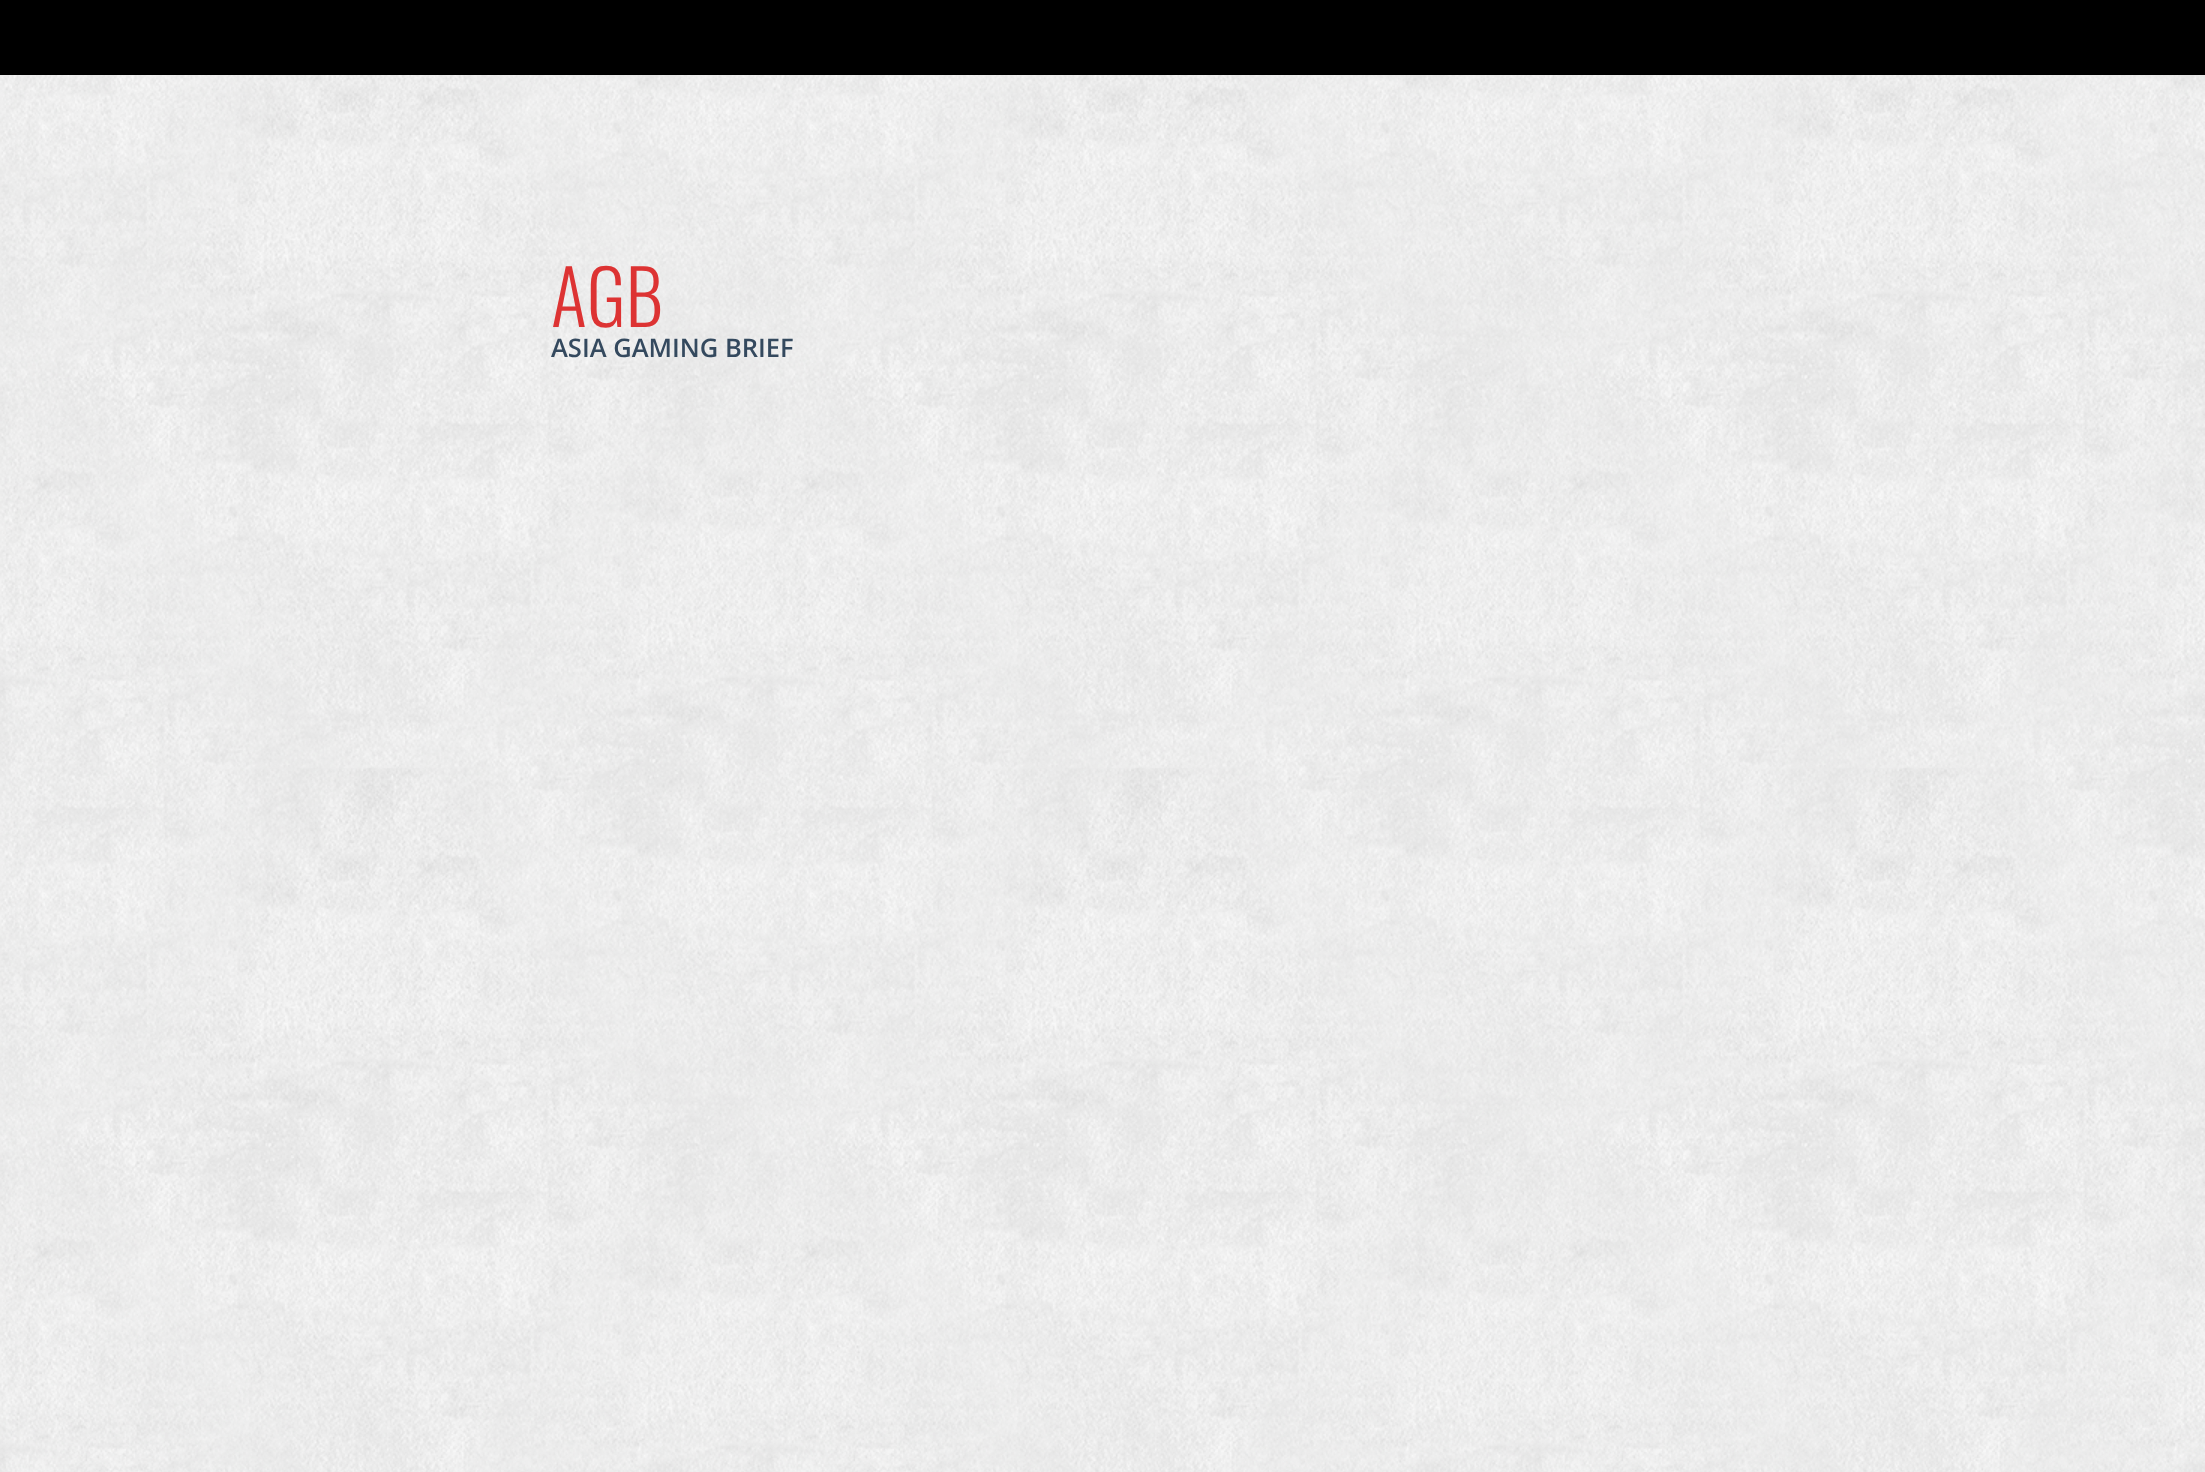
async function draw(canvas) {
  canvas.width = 2205
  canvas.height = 1472
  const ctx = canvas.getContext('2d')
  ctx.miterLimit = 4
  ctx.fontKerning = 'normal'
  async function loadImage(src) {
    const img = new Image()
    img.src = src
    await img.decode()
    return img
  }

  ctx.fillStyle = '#fff'
  ctx.fillRect(0, 0, 2205, 1472)
  ctx.drawImage(await loadImage('image0.png'), 0, 75, 2205, 1397)
  ctx.fillStyle = '#000'
  ctx.fillRect(0, 0, 2205, 75)
  ctx.font = '300 75px Oswald'
  ctx.fillStyle = '#d33'
  ctx.fillText('AGB', 551, 327)
  ctx.font = '600 25.5px Open Sans'
  ctx.fillStyle = '#34495e'
  ctx.fillText('ASIA GAMING BRIEF', 551, 357)
}

draw(document.querySelector('canvas'))
